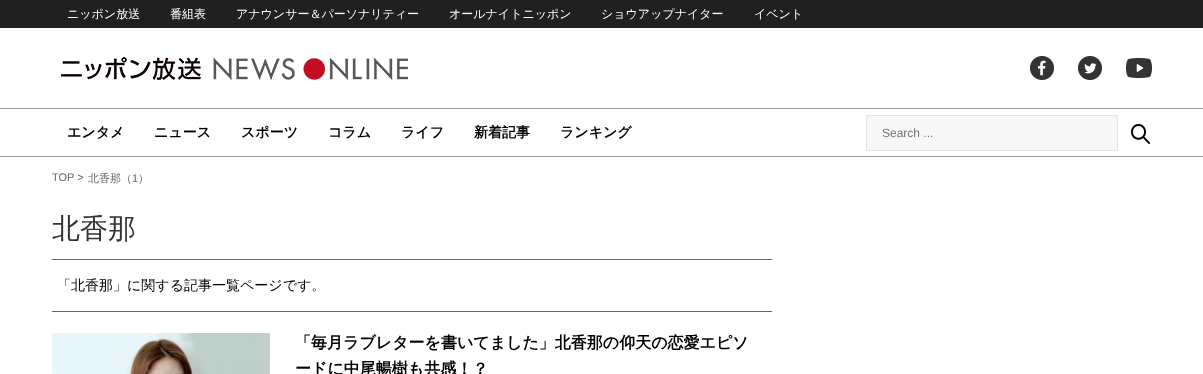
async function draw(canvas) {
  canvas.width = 1203
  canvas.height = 374
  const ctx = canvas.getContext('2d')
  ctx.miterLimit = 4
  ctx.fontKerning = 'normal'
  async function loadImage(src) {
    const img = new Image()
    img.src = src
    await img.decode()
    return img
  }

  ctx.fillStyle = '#fff'
  ctx.fillRect(0, 0, 1203, 374)
  ctx.fillStyle = '#202020'
  ctx.fillRect(0, 0, 1203, 28)
  ctx.font = '500 12px WenQuanYi Zen Hei'
  ctx.fillStyle = '#fff'
  ctx.fillText('ニッポン放送', 67, 18)
  ctx.fillText('番組表', 170, 18)
  ctx.fillText('アナウンサー＆パーソナリティー', 236, 18)
  ctx.fillText('オールナイトニッポン', 449, 18)
  ctx.fillText('ショウアップナイター', 601, 18)
  ctx.fillText('イベント', 754, 18)
  ctx.drawImage(await loadImage('image0.png'), 61, 57, 347, 23)
  ctx.drawImage(await loadImage('image1.png'), 1030, 56, 24, 24)
  ctx.drawImage(await loadImage('image2.png'), 1078, 56, 24, 24)
  ctx.drawImage(await loadImage('image3.png'), 1126, 58, 26, 20)
  ctx.fillStyle = '#999'
  ctx.fillRect(0, 108, 1203, 1)
  ctx.fillRect(0, 156, 1203, 1)
  ctx.font = 'bold 14px WenQuanYi Zen Hei'
  ctx.fillStyle = '#000'
  ctx.fillText('エンタメ', 67, 137)
  ctx.fillText('ニュース', 154, 137)
  ctx.fillText('スポーツ', 241, 137)
  ctx.fillText('コラム', 328, 137)
  ctx.fillText('ライフ', 401, 137)
  ctx.fillText('新着記事', 474, 137)
  ctx.fillText('ランキング', 560, 137)
  ctx.fillStyle = '#f7f7f7'
  ctx.beginPath()
  ctx.rect(866.5, 115.5, 251, 35)
  ctx.fill()
  ctx.strokeStyle = '#e3e3e3'
  ctx.stroke()
  ctx.font = '12px Liberation Sans'
  ctx.fillStyle = '#757575'
  ctx.fillText('Search ...', 882, 137)
  ctx.drawImage(await loadImage('image4.png'), 1131, 124, 19, 20)
  ctx.font = '11px Liberation Sans'
  ctx.fillStyle = '#666'
  ctx.fillText('TOP >', 52, 181)
  ctx.font = '500 11px WenQuanYi Zen Hei'
  ctx.fillText('北香那（', 88, 182)
  ctx.font = '11px Liberation Sans'
  ctx.fillText('1', 132, 182)
  ctx.font = '500 11px WenQuanYi Zen Hei'
  ctx.fillText('）', 138, 182)
  ctx.font = '500 28px WenQuanYi Zen Hei'
  ctx.fillStyle = '#333'
  ctx.fillText('北香那', 52, 238)
  ctx.fillStyle = '#666'
  ctx.fillRect(52, 259, 720, 1)
  ctx.font = '500 14px WenQuanYi Zen Hei'
  ctx.fillStyle = '#000'
  ctx.fillText('「北香那」に関する記事一覧ページです。', 57, 290)
  ctx.fillStyle = '#666'
  ctx.fillRect(52, 311, 720, 1)
  ctx.drawImage(await loadImage('image5.png'), 52, 333, 218, 41)
  ctx.font = 'bold 16px WenQuanYi Zen Hei'
  ctx.fillStyle = '#000'
  ctx.fillText('「毎月ラブレターを書いてました」北香那の仰天の恋愛エピソ', 295, 348)
  ctx.fillText('ードに中尾暢樹も共感！？', 295, 374)
}

draw(document.querySelector('canvas'))
